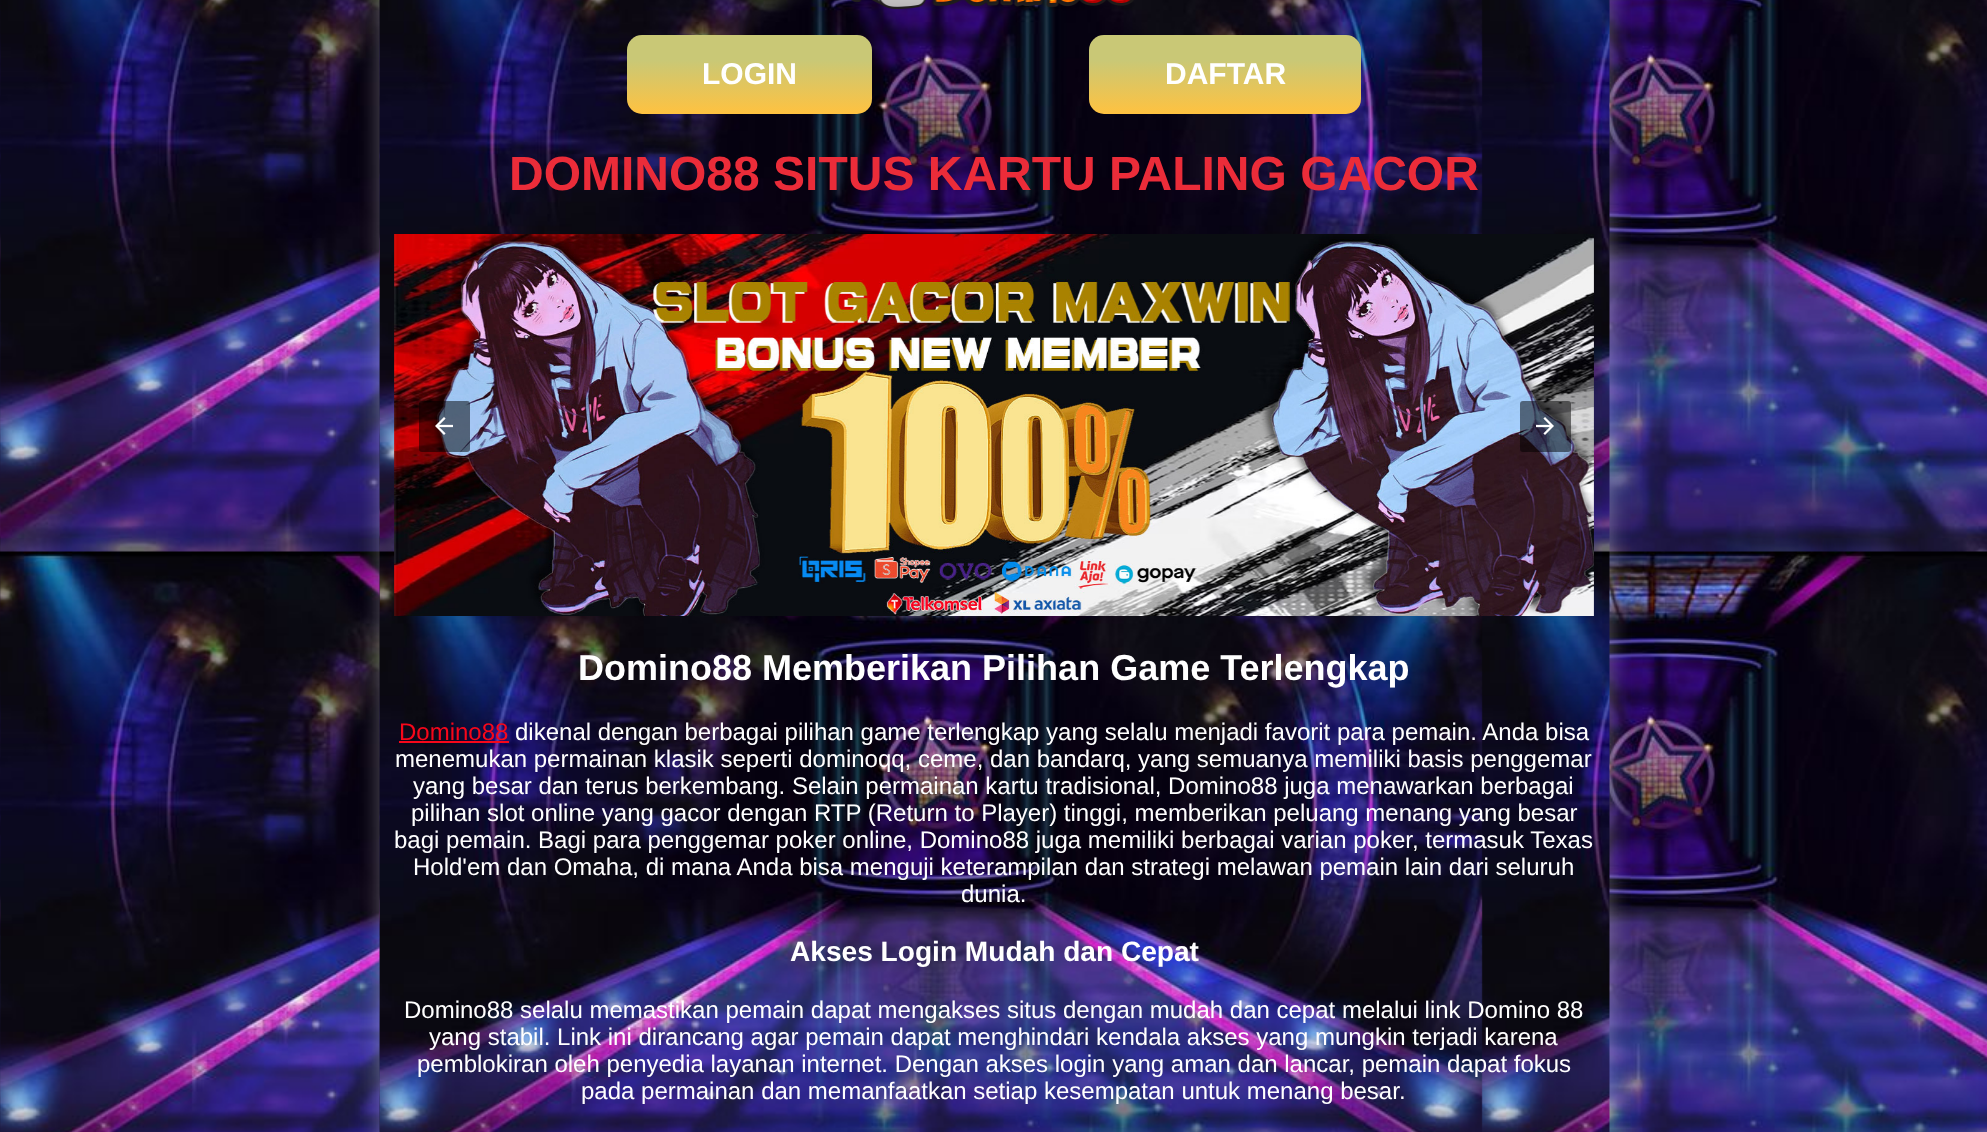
async function draw(canvas) {
  canvas.width = 1987
  canvas.height = 1132
  const ctx = canvas.getContext('2d')
  ctx.miterLimit = 4
  ctx.fontKerning = 'normal'
  async function loadImage(src) {
    const img = new Image()
    img.src = src
    await img.decode()
    return img
  }
  let gradient

  ctx.fillStyle = '#fff'
  ctx.fillRect(0, 0, 1987, 1132)
  ctx.drawImage(await loadImage('image0.png'), 0, 0, 1987, 1132)
  ctx.fillStyle = '#ffffff59'
  ctx.filter = 'blur(11px)'
  ctx.beginPath()
  ctx.rect(380, -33, 1230, 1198)
  ctx.fill()
  ctx.filter = 'none'
  ctx.drawImage(await loadImage('image1.png'), 379, 0, 1231, 1132)
  ctx.drawImage(await loadImage('image2.png'), 851, 0, 283, 9)
  gradient = ctx.createLinearGradient(749, 34, 749, 114)
  gradient.addColorStop(0.33, '#c9c876')
  gradient.addColorStop(1, '#ffc240')
  ctx.fillStyle = gradient
  ctx.beginPath()
  ctx.roundRect(627, 35, 245, 79, 15)
  ctx.fill()
  ctx.font = 'bold 30px Liberation Sans'
  ctx.fillStyle = '#fff'
  ctx.fillText('LOGIN', 702, 84)
  gradient = ctx.createLinearGradient(1225, 34, 1225, 114)
  gradient.addColorStop(0.33, '#c9c876')
  gradient.addColorStop(1, '#ffc240')
  ctx.fillStyle = gradient
  ctx.beginPath()
  ctx.roundRect(1089, 35, 272, 79, 15)
  ctx.fill()
  ctx.fillStyle = '#fff'
  ctx.fillText('DAFTAR', 1165, 84)
  ctx.font = 'bold 48px Liberation Sans'
  ctx.fillStyle = '#eb2c39'
  ctx.fillText('DOMINO88 SITUS KARTU PALING GACOR', 509, 190)
  ctx.drawImage(await loadImage('image3.png'), 394, 234, 1200, 382)
  ctx.fillStyle = '#00000080'
  ctx.beginPath()
  ctx.roundRect(419, 401, 51, 51, 3)
  ctx.fill()
  ctx.drawImage(await loadImage('image4.png'), 435, 417, 18, 18)
  ctx.beginPath()
  ctx.roundRect(1520, 401, 51, 51, 3)
  ctx.fill()
  ctx.drawImage(await loadImage('image5.png'), 1536, 417, 18, 18)
  ctx.font = 'bold 36px Liberation Sans'
  ctx.fillStyle = '#fff'
  ctx.fillText('Domino88 Memberikan Pilihan Game Terlengkap', 578, 680)
  ctx.font = '24px Liberation Sans'
  ctx.fillStyle = '#f7071a'
  ctx.fillText('Domino88', 399, 740)
  ctx.fillRect(399, 741, 110, 2)
  ctx.fillStyle = '#fff'
  ctx.fillText('dikenal dengan berbagai pilihan game terlengkap yang selalu menjadi favorit para pemain. Anda bisa', 515, 740)
  ctx.fillText('menemukan permainan klasik seperti dominoqq, ceme, dan bandarq, yang semuanya memiliki basis penggemar', 395, 767)
  ctx.fillText('yang besar dan terus berkembang. Selain permainan kartu tradisional, Domino88 juga menawarkan berbagai', 413, 794)
  ctx.fillText('pilihan slot online yang gacor dengan RTP (Return to Player) tinggi, memberikan peluang menang yang besar', 411, 821)
  ctx.fillText('bagi pemain. Bagi para penggemar poker online, Domino88 juga memiliki berbagai varian poker, termasuk Texas', 394, 848)
  ctx.fillText('Hold\'em dan Omaha, di mana Anda bisa menguji keterampilan dan strategi melawan pemain lain dari seluruh', 413, 875)
  ctx.fillText('dunia.', 961, 902)
  ctx.font = 'bold 28.1px Liberation Sans'
  ctx.fillText('Akses Login Mudah dan Cepat', 790, 961)
  ctx.font = '24px Liberation Sans'
  ctx.fillText('Domino88 selalu memastikan pemain dapat mengakses situs dengan mudah dan cepat melalui link Domino 88', 404, 1018)
  ctx.fillText('yang stabil. Link ini dirancang agar pemain dapat menghindari kendala akses yang mungkin terjadi karena', 429, 1045)
  ctx.fillText('pemblokiran oleh penyedia layanan internet. Dengan akses login yang aman dan lancar, pemain dapat fokus', 417, 1072)
  ctx.fillText('pada permainan dan memanfaatkan setiap kesempatan untuk menang besar.', 581, 1099)
}

draw(document.querySelector('canvas'))
